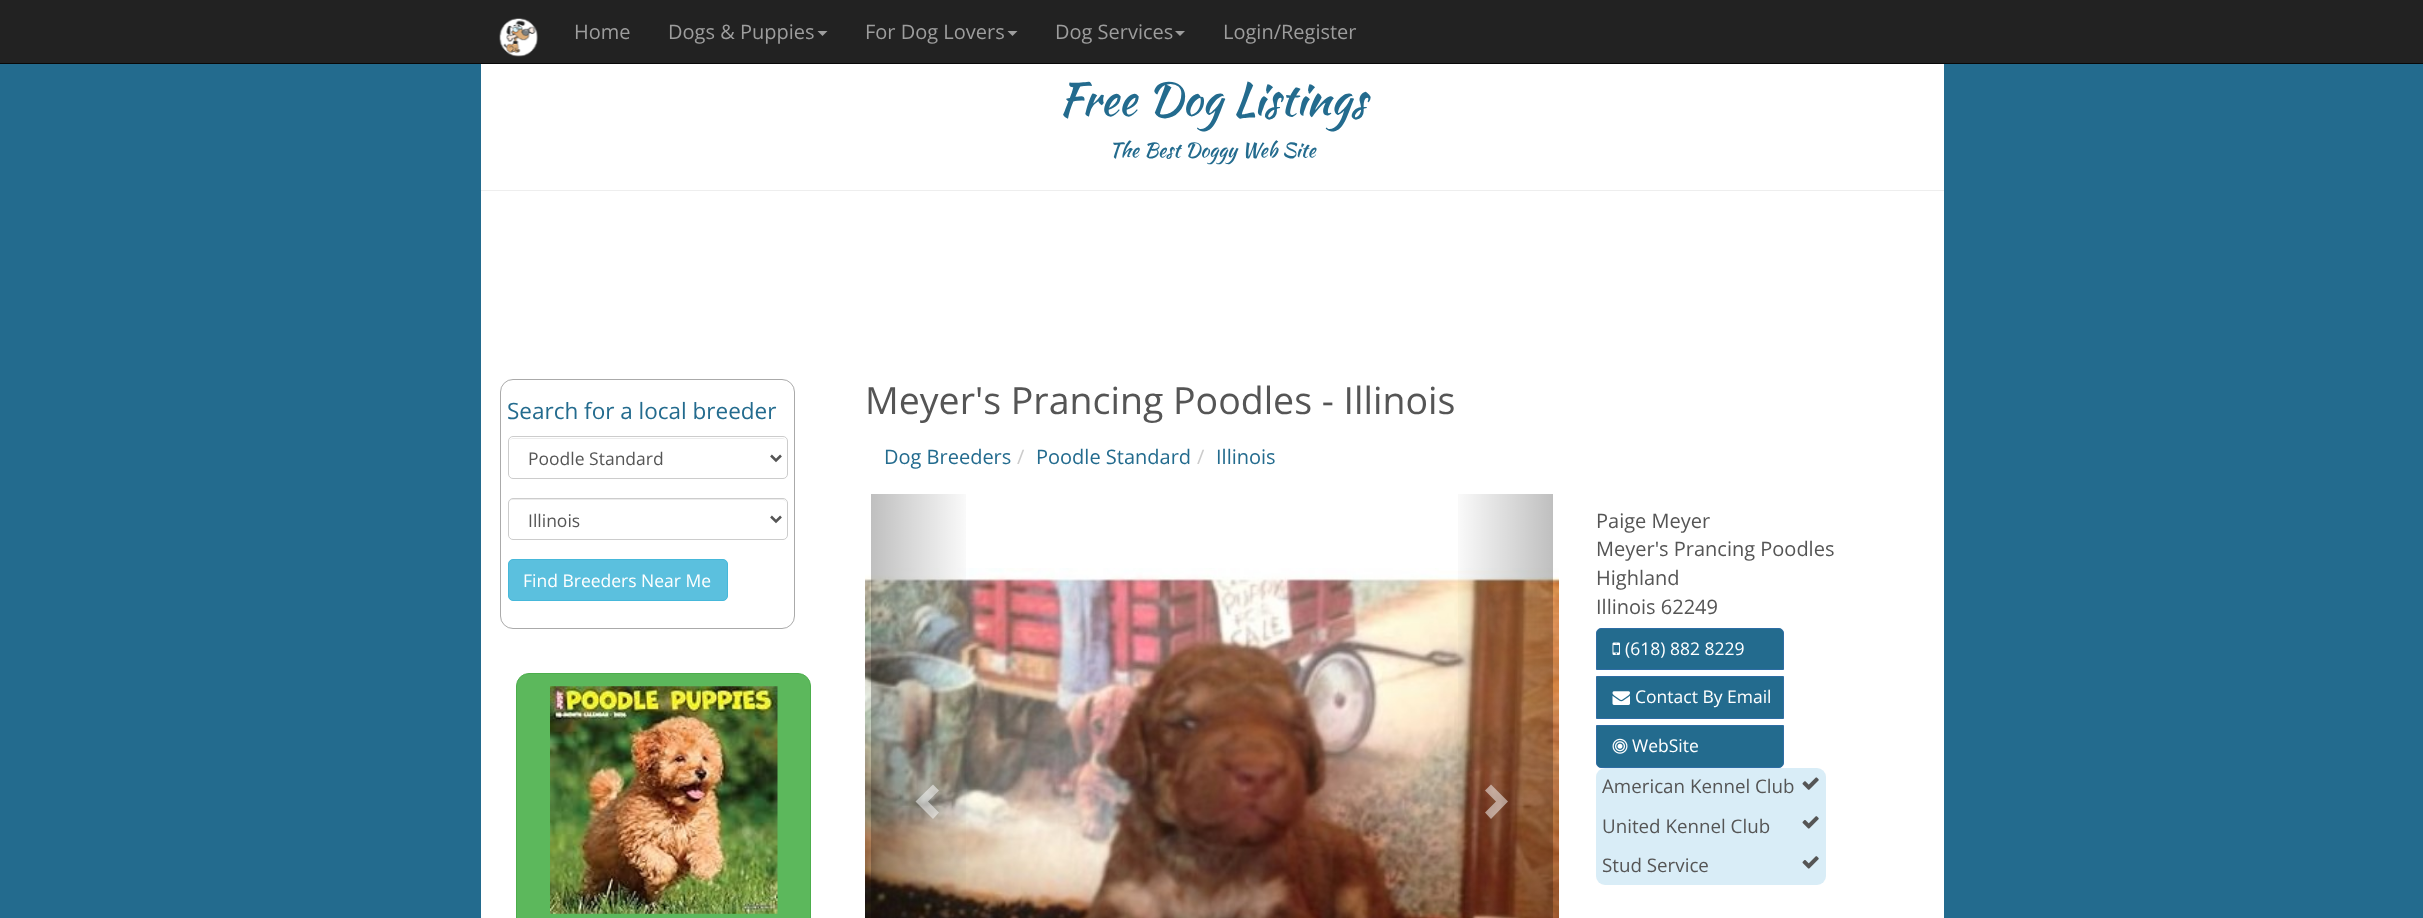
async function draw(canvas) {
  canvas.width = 2423
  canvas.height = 918
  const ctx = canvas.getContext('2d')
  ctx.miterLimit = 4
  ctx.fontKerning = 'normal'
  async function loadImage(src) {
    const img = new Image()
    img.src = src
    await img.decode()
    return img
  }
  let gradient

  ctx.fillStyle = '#236b8e'
  ctx.fillRect(0, 0, 2423, 918)
  ctx.fillStyle = '#222'
  ctx.fillRect(0, 0, 2423, 63)
  ctx.fillStyle = '#080808'
  ctx.fillRect(0, 63, 2423, 1)
  ctx.drawImage(await loadImage('image0.png'), 499, 18, 39, 39)
  ctx.font = '20px Open Sans'
  ctx.fillStyle = '#9d9d9d'
  ctx.fillText('Home', 574, 39)
  ctx.fillText('Dogs & Puppies', 668, 39)
  ctx.beginPath()
  ctx.moveTo(817.5, 31)
  ctx.lineTo(827.5, 31)
  ctx.lineTo(822.5, 36)
  ctx.closePath()
  ctx.fill()
  ctx.fillText('For Dog Lovers', 865, 39)
  ctx.beginPath()
  ctx.moveTo(1007.5, 31)
  ctx.lineTo(1017.5, 31)
  ctx.lineTo(1012.5, 36)
  ctx.closePath()
  ctx.fill()
  ctx.fillText('Dog Services', 1055, 39)
  ctx.beginPath()
  ctx.moveTo(1175, 31)
  ctx.lineTo(1185, 31)
  ctx.lineTo(1180, 36)
  ctx.closePath()
  ctx.fill()
  ctx.fillText('Login/Register', 1223, 39)
  ctx.fillStyle = '#fff'
  ctx.fillRect(481, 64, 1463, 854)
  ctx.font = '45px Kaushan Script'
  ctx.fillStyle = '#236b8e'
  ctx.fillText('Free Dog Listings', 1058, 115)
  ctx.font = '20px Kaushan Script'
  ctx.fillText('The Best Doggy Web Site', 1109, 157)
  ctx.fillStyle = '#eee'
  ctx.fillRect(481, 190, 1463, 1)
  ctx.beginPath()
  ctx.roundRect(500.5, 379.5, 294, 249, 12.5)
  ctx.strokeStyle = '#aaa'
  ctx.stroke()
  ctx.font = '22.5px Open Sans'
  ctx.fillStyle = '#236b8e'
  ctx.fillText('Search for a local breeder', 507, 419)
  ctx.fillStyle = '#ececec'
  ctx.beginPath()
  ctx.moveTo(512, 439)
  ctx.lineTo(782, 439)
  ctx.bezierCurveTo(784, 439, 785, 439, 786, 440)
  ctx.bezierCurveTo(785, 439, 784, 438, 782, 438)
  ctx.lineTo(513, 438)
  ctx.bezierCurveTo(512, 438, 510, 439, 510, 440)
  ctx.closePath()
  ctx.fill()
  ctx.beginPath()
  ctx.roundRect(508.5, 436.5, 279, 42, 4.5)
  ctx.strokeStyle = '#ccc'
  ctx.stroke()
  ctx.beginPath()
  ctx.moveTo(771, 455.5)
  ctx.lineTo(776, 460.5)
  ctx.lineTo(781, 455.5)
  ctx.strokeStyle = '#555'
  ctx.lineWidth = 2.5
  ctx.stroke()
  ctx.font = '17.5px Open Sans'
  ctx.fillStyle = '#555'
  ctx.fillText('Poodle Standard', 528, 465)
  ctx.fillStyle = '#ececec'
  ctx.beginPath()
  ctx.moveTo(512, 500)
  ctx.lineTo(782, 500)
  ctx.bezierCurveTo(785, 500, 786, 502, 786, 504)
  ctx.bezierCurveTo(786, 501, 785, 499, 782, 499)
  ctx.lineTo(513, 499)
  ctx.bezierCurveTo(510, 499, 509, 501, 509, 504)
  ctx.bezierCurveTo(509, 502, 510, 500, 512, 500)
  ctx.closePath()
  ctx.fill()
  ctx.beginPath()
  ctx.roundRect(508.5, 498.5, 279, 41, 4.5)
  ctx.strokeStyle = '#ccc'
  ctx.lineWidth = 1
  ctx.stroke()
  ctx.beginPath()
  ctx.moveTo(771, 516.5)
  ctx.lineTo(776, 521.5)
  ctx.lineTo(781, 516.5)
  ctx.strokeStyle = '#555'
  ctx.lineWidth = 2.5
  ctx.stroke()
  ctx.fillStyle = '#555'
  ctx.fillText('Illinois', 528, 527)
  ctx.fillStyle = '#5bc0de'
  ctx.beginPath()
  ctx.roundRect(508.5, 559.5, 219, 41, 4.5)
  ctx.fill()
  ctx.strokeStyle = '#46b8da'
  ctx.lineWidth = 1
  ctx.stroke()
  ctx.fillStyle = '#fff'
  ctx.fillText('Find Breeders Near Me', 523, 587)
  ctx.fillStyle = '#5cb85c'
  ctx.beginPath()
  ctx.roundRect(516.5, 673.5, 294, 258, 12.5)
  ctx.fill()
  ctx.strokeStyle = '#4cae4c'
  ctx.stroke()
  ctx.drawImage(await loadImage('image1.png'), 550, 686, 228, 228)
  ctx.font = '37.5px Open Sans'
  ctx.fillStyle = '#555'
  ctx.fillText('Meyer\'s Prancing Poodles - Illinois', 865, 414)
  ctx.font = '20px Open Sans'
  ctx.fillStyle = '#236b8e'
  ctx.fillText('Dog Breeders', 884, 464)
  ctx.fillStyle = '#ccc'
  ctx.fillText('/', 1017, 464)
  ctx.fillStyle = '#236b8e'
  ctx.fillText('Poodle Standard', 1036, 464)
  ctx.fillStyle = '#ccc'
  ctx.fillText('/', 1197, 464)
  ctx.fillStyle = '#236b8e'
  ctx.fillText('Illinois', 1216, 464)
  ctx.drawImage(await loadImage('image2.png'), 865, 568, 694, 350)
  gradient = ctx.createLinearGradient(871, 794, 975, 794)
  gradient.addColorStop(0, '#00000040')
  gradient.addColorStop(1, '#00000000')
  ctx.fillStyle = gradient
  ctx.fillRect(871, 494, 95, 424)
  ctx.fillStyle = '#ffffff80'
  ctx.beginPath()
  ctx.moveTo(939, 790.5)
  ctx.lineTo(928, 801.5)
  ctx.lineTo(939, 812.5)
  ctx.lineTo(933, 819)
  ctx.lineTo(915.5, 801.5)
  ctx.lineTo(933, 784.5)
  ctx.closePath()
  ctx.fill()
  gradient = ctx.createLinearGradient(1449, 794, 1553, 794)
  gradient.addColorStop(0, '#00000000')
  gradient.addColorStop(1, '#00000040')
  ctx.fillStyle = gradient
  ctx.fillRect(1458, 494, 95, 424)
  ctx.fillStyle = '#ffffff80'
  ctx.beginPath()
  ctx.moveTo(1508, 801.5)
  ctx.lineTo(1491, 819)
  ctx.lineTo(1485, 812.5)
  ctx.lineTo(1496, 801.5)
  ctx.lineTo(1485, 790.5)
  ctx.lineTo(1491, 784.5)
  ctx.closePath()
  ctx.fill()
  ctx.fillStyle = '#555'
  ctx.fillText('Paige Meyer', 1596, 528)
  ctx.fillText('Meyer\'s Prancing Poodles', 1596, 556)
  ctx.fillText('Highland', 1596, 585)
  ctx.fillText('Illinois 62249', 1596, 614)
  ctx.fillStyle = '#236b8e'
  ctx.beginPath()
  ctx.roundRect(1596.5, 628.5, 187, 41, [4.5, 4.5, 0, 0])
  ctx.fill()
  ctx.strokeStyle = '#2e6da4'
  ctx.stroke()
  ctx.drawImage(await loadImage('image3.png'), 1612, 642, 8, 13)
  ctx.font = '17.5px Open Sans'
  ctx.fillStyle = '#fff'
  ctx.fillText('(618) 882 8229', 1625, 655)
  ctx.fillStyle = '#236b8e'
  ctx.beginPath()
  ctx.rect(1596.5, 676.5, 187, 42)
  ctx.fill()
  ctx.stroke()
  ctx.drawImage(await loadImage('image4.png'), 1612, 691, 18, 14)
  ctx.fillStyle = '#fff'
  ctx.fillText('Contact By Email', 1635, 703)
  ctx.fillStyle = '#236b8e'
  ctx.beginPath()
  ctx.roundRect(1596.5, 725.5, 187, 42, [0, 0, 4.5, 4.5])
  ctx.fill()
  ctx.stroke()
  ctx.drawImage(await loadImage('image5.png'), 1612, 738, 16, 16)
  ctx.fillStyle = '#fff'
  ctx.fillText('WebSite', 1632, 752)
  ctx.fillStyle = '#d9edf7'
  ctx.beginPath()
  ctx.roundRect(1596, 768, 230, 117, 9)
  ctx.fill()
  ctx.font = '18.75px Open Sans'
  ctx.fillStyle = '#555'
  ctx.fillText('American Kennel Club', 1602, 793)
  ctx.drawImage(await loadImage('image6.png'), 1802, 777, 17, 13)
  ctx.fillText('United Kennel Club', 1602, 833)
  ctx.drawImage(await loadImage('image7.png'), 1802, 816, 17, 13)
  ctx.fillText('Stud Service', 1602, 872)
  ctx.drawImage(await loadImage('image7.png'), 1802, 856, 17, 13)
}

draw(document.querySelector('canvas'))
